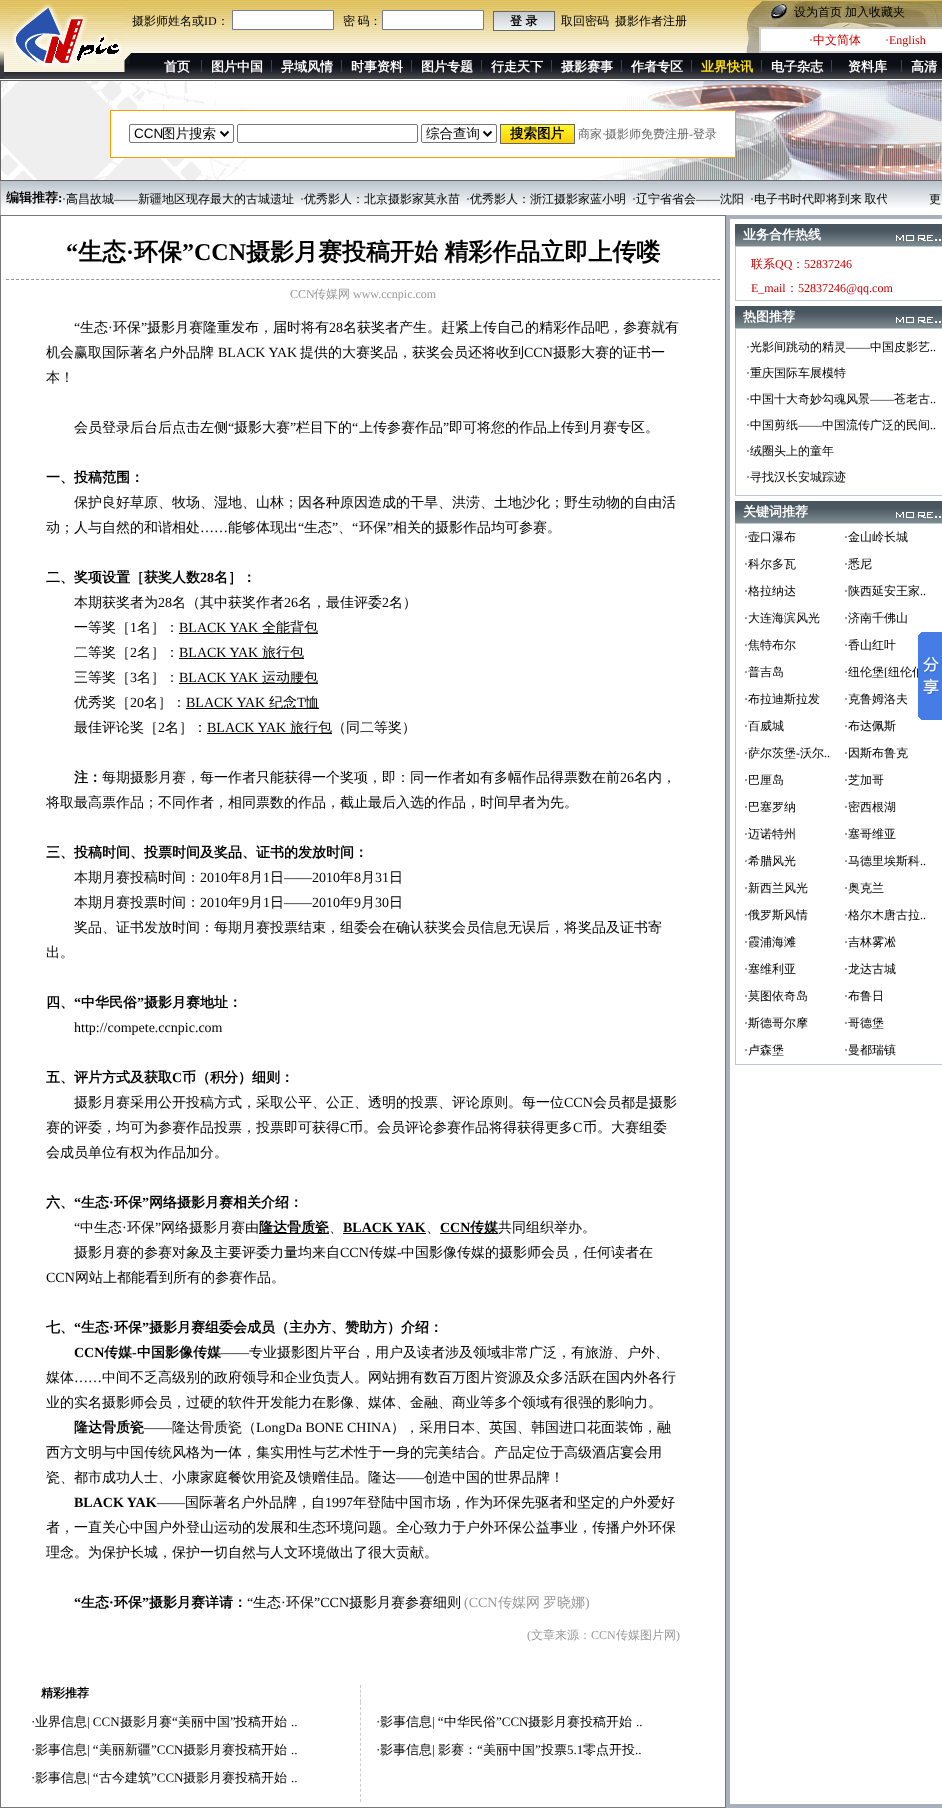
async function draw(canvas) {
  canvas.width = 942
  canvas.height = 1809
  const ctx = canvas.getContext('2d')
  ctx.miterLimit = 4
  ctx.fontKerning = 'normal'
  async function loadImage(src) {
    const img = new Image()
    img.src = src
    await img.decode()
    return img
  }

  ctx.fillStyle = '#fff'
  ctx.fillRect(0, 0, 942, 1809)
  ctx.drawImage(await loadImage('image0.png'), 0, 0, 942, 79)
  ctx.drawImage(await loadImage('image1.png'), 0, 44, 132, 35)
  ctx.drawImage(await loadImage('image2.png'), 10, 3, 113, 65)
  ctx.font = '500 12px WenQuanYi Zen Hei'
  ctx.fillStyle = '#000'
  ctx.fillText('摄影师姓名或', 132, 25)
  ctx.font = '12px Liberation Serif'
  ctx.fillText('ID', 204, 25)
  ctx.font = '500 12px WenQuanYi Zen Hei'
  ctx.fillText('：', 217, 25)
  ctx.fillStyle = '#fff'
  ctx.beginPath()
  ctx.rect(232.5, 10.5, 101, 19)
  ctx.fill()
  ctx.strokeStyle = '#727c9a'
  ctx.stroke()
  ctx.wordSpacing = '-1px'
  ctx.fillStyle = '#000'
  ctx.fillText('密 码：', 343, 25)
  ctx.fillStyle = '#fff'
  ctx.beginPath()
  ctx.rect(382.5, 10.5, 101, 19)
  ctx.fill()
  ctx.stroke()
  ctx.drawImage(await loadImage('image3.png'), 493, 11, 62, 20)
  ctx.wordSpacing = '0px'
  ctx.font = 'bold 12px WenQuanYi Zen Hei'
  ctx.fillStyle = '#000'
  ctx.fillText('登 录', 510, 25)
  ctx.font = '500 12px WenQuanYi Zen Hei'
  ctx.fillText('取回密码', 561, 25)
  ctx.fillText('摄影作者注册', 615, 25)
  ctx.drawImage(await loadImage('image4.png'), 744, 1, 198, 52)
  ctx.fillText('设为首页', 794, 16)
  ctx.fillText('加入收藏夹', 845, 16)
  ctx.fillStyle = '#fff'
  ctx.beginPath()
  ctx.rect(760, 28, 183, 24)
  ctx.fill()
  ctx.strokeStyle = '#d3d2d0'
  ctx.lineWidth = 2
  ctx.stroke()
  ctx.font = '12px Liberation Serif'
  ctx.fillStyle = '#c00'
  ctx.fillText('·', 809, 44)
  ctx.font = '500 12px WenQuanYi Zen Hei'
  ctx.fillText('中文简体', 813, 44)
  ctx.font = '12px Liberation Serif'
  ctx.fillText('·English', 885, 44)
  ctx.fillStyle = '#134e9d'
  ctx.fillRect(201, 60, 1, 12)
  ctx.font = 'bold 13px WenQuanYi Zen Hei'
  ctx.fillStyle = '#fff'
  ctx.fillText('首页', 164, 71)
  ctx.fillStyle = '#134e9d'
  ctx.fillRect(271, 60, 1, 12)
  ctx.fillStyle = '#fff'
  ctx.fillText('图片中国', 211, 71)
  ctx.fillStyle = '#134e9d'
  ctx.fillRect(341, 60, 1, 12)
  ctx.fillStyle = '#fff'
  ctx.fillText('异域风情', 281, 71)
  ctx.fillStyle = '#134e9d'
  ctx.fillRect(411, 60, 1, 12)
  ctx.fillStyle = '#fff'
  ctx.fillText('时事资料', 351, 71)
  ctx.fillStyle = '#134e9d'
  ctx.fillRect(481, 60, 1, 12)
  ctx.fillStyle = '#fff'
  ctx.fillText('图片专题', 421, 71)
  ctx.fillStyle = '#134e9d'
  ctx.fillRect(551, 60, 1, 12)
  ctx.fillStyle = '#fff'
  ctx.fillText('行走天下', 491, 71)
  ctx.fillStyle = '#134e9d'
  ctx.fillRect(621, 60, 1, 12)
  ctx.fillStyle = '#fff'
  ctx.fillText('摄影赛事', 561, 71)
  ctx.fillStyle = '#134e9d'
  ctx.fillRect(691, 60, 1, 12)
  ctx.fillStyle = '#fff'
  ctx.fillText('作者专区', 631, 71)
  ctx.fillStyle = '#134e9d'
  ctx.fillRect(761, 60, 1, 12)
  ctx.fillStyle = '#ffe014'
  ctx.fillText('业界快讯', 701, 71)
  ctx.fillStyle = '#134e9d'
  ctx.fillRect(831, 60, 1, 12)
  ctx.fillStyle = '#fff'
  ctx.fillText('电子杂志', 771, 71)
  ctx.fillStyle = '#134e9d'
  ctx.fillRect(901, 60, 1, 12)
  ctx.fillStyle = '#fff'
  ctx.fillText('资料库', 848, 71)
  ctx.fillText('高清', 911, 71)
  ctx.drawImage(await loadImage('image5.png'), 0, 80, 942, 101)
  ctx.beginPath()
  ctx.rect(110.5, 110.5, 625, 47)
  ctx.fill()
  ctx.strokeStyle = '#f90'
  ctx.lineWidth = 1
  ctx.stroke()
  ctx.beginPath()
  ctx.roundRect(129.5, 124.5, 104, 18, 1.5)
  ctx.strokeStyle = '#767676'
  ctx.stroke()
  ctx.beginPath()
  ctx.moveTo(220.5, 131.5)
  ctx.lineTo(224.5, 135.5)
  ctx.lineTo(228.5, 131.5)
  ctx.strokeStyle = '#000'
  ctx.lineWidth = 2
  ctx.stroke()
  ctx.font = '13.5px Liberation Sans'
  ctx.fillStyle = '#000'
  ctx.fillText('CCN', 134, 138)
  ctx.font = '500 13.5px WenQuanYi Zen Hei'
  ctx.fillText('图片搜索', 162, 138)
  ctx.beginPath()
  ctx.roundRect(237.5, 124.5, 180, 18, 1.5)
  ctx.strokeStyle = '#767676'
  ctx.lineWidth = 1
  ctx.stroke()
  ctx.beginPath()
  ctx.roundRect(421.5, 124.5, 75, 18, 1.5)
  ctx.stroke()
  ctx.beginPath()
  ctx.moveTo(483.5, 131.5)
  ctx.lineTo(487.5, 135.5)
  ctx.lineTo(491.5, 131.5)
  ctx.strokeStyle = '#000'
  ctx.lineWidth = 2
  ctx.stroke()
  ctx.fillText('综合查询', 426, 138)
  ctx.drawImage(await loadImage('image6.png'), 500, 124, 75, 20)
  ctx.font = 'bold 13.5px WenQuanYi Zen Hei'
  ctx.fillText('搜索图片', 510, 138)
  ctx.font = '500 12px WenQuanYi Zen Hei'
  ctx.fillStyle = '#666'
  ctx.fillText('商家', 578, 138)
  ctx.font = '12px Liberation Serif'
  ctx.fillText('·', 602, 138)
  ctx.font = '500 12px WenQuanYi Zen Hei'
  ctx.fillText('摄影师免费注册', 605, 138)
  ctx.font = '12px Liberation Serif'
  ctx.fillText('-', 689, 138)
  ctx.font = '500 12px WenQuanYi Zen Hei'
  ctx.fillText('登录', 693, 138)
  ctx.drawImage(await loadImage('image7.png'), 1, 181, 941, 27)
  ctx.fillStyle = '#acacac'
  ctx.fillRect(0, 181, 1, 34)
  ctx.font = 'bold 13px WenQuanYi Zen Hei'
  ctx.fillStyle = '#000'
  ctx.fillText('编辑推荐', 6, 202)
  ctx.font = 'bold 13px Liberation Serif'
  ctx.fillText(':', 58, 202)
  ctx.font = '12px Liberation Serif'
  ctx.fillText('·', 62, 203)
  ctx.font = '500 12px WenQuanYi Zen Hei'
  ctx.fillText('高昌故城', 66, 203)
  ctx.font = '12px Liberation Serif'
  ctx.fillText('——', 114, 203)
  ctx.font = '500 12px WenQuanYi Zen Hei'
  ctx.fillText('新疆地区现存最大的古城遗址', 138, 203)
  ctx.font = '12px Liberation Serif'
  ctx.fillText('·', 300, 203)
  ctx.font = '500 12px WenQuanYi Zen Hei'
  ctx.fillText('优秀影人：北京摄影家莫永苗', 304, 203)
  ctx.font = '12px Liberation Serif'
  ctx.fillText('·', 466, 203)
  ctx.font = '500 12px WenQuanYi Zen Hei'
  ctx.fillText('优秀影人：浙江摄影家蓝小明', 470, 203)
  ctx.font = '12px Liberation Serif'
  ctx.fillText('·', 632, 203)
  ctx.font = '500 12px WenQuanYi Zen Hei'
  ctx.fillText('辽宁省省会', 636, 203)
  ctx.font = '12px Liberation Serif'
  ctx.fillText('——', 696, 203)
  ctx.font = '500 12px WenQuanYi Zen Hei'
  ctx.fillText('沈阳', 720, 203)
  ctx.font = '12px Liberation Serif'
  ctx.fillText('·', 750, 203)
  ctx.save()
  ctx.beginPath()
  ctx.rect(62, 181, 825, 28)
  ctx.clip()
  ctx.wordSpacing = '-1px'
  ctx.font = '500 12px WenQuanYi Zen Hei'
  ctx.fillText('电子书时代即将到来 取代', 754, 203)
  ctx.restore()
  ctx.font = '500 12px WenQuanYi Zen Hei'
  ctx.fillText('更', 929, 203)
  ctx.strokeStyle = '#767777'
  ctx.lineWidth = 1
  ctx.strokeRect(0.5, 215.5, 725, 1592)
  ctx.font = 'bold 24px Liberation Serif'
  ctx.fillText('“', 66, 260)
  ctx.font = 'bold 24px WenQuanYi Zen Hei'
  ctx.fillText('生态', 78, 260)
  ctx.font = 'bold 24px Liberation Serif'
  ctx.fillText('·', 126, 260)
  ctx.font = 'bold 24px WenQuanYi Zen Hei'
  ctx.fillText('环保', 134, 260)
  ctx.font = 'bold 24px Liberation Serif'
  ctx.fillText('”CCN', 182, 260)
  ctx.wordSpacing = '-1px'
  ctx.font = 'bold 24px WenQuanYi Zen Hei'
  ctx.fillText('摄影月赛投稿开始 精彩作品立即上传喽', 246, 260)
  ctx.beginPath()
  ctx.moveTo(6, 279.5)
  ctx.lineTo(720, 279.5)
  ctx.strokeStyle = '#999'
  ctx.setLineDash([3, 2.01])
  ctx.stroke()
  ctx.wordSpacing = '0px'
  ctx.font = '12px Liberation Serif'
  ctx.fillStyle = '#999'
  ctx.fillText('CCN', 290, 298)
  ctx.font = '500 12px WenQuanYi Zen Hei'
  ctx.fillText('传媒网', 314, 298)
  ctx.font = '12px Liberation Serif'
  ctx.fillText('www.ccnpic.com', 353, 298)
  ctx.font = '14px Liberation Serif'
  ctx.fillStyle = '#000'
  ctx.fillText('“', 74, 332)
  ctx.font = '500 14px WenQuanYi Zen Hei'
  ctx.fillText('生态', 80, 332)
  ctx.font = '14px Liberation Serif'
  ctx.fillText('·', 108, 332)
  ctx.font = '500 14px WenQuanYi Zen Hei'
  ctx.fillText('环保', 113, 332)
  ctx.font = '14px Liberation Serif'
  ctx.fillText('”', 141, 332)
  ctx.font = '500 14px WenQuanYi Zen Hei'
  ctx.fillText('摄影月赛隆重发布，届时将有', 147, 332)
  ctx.font = '14px Liberation Serif'
  ctx.fillText('28', 329, 332)
  ctx.font = '500 14px WenQuanYi Zen Hei'
  ctx.fillText('名获奖者产生。赶紧上传自己的精彩作品吧，参赛就有', 343, 332)
  ctx.fillText('机会赢取国际著名户外品牌', 46, 357)
  ctx.font = '14px Liberation Serif'
  ctx.fillText('BLACK YAK', 218, 357)
  ctx.font = '500 14px WenQuanYi Zen Hei'
  ctx.fillText('提供的大赛奖品，获奖会员还将收到', 300, 357)
  ctx.font = '14px Liberation Serif'
  ctx.fillText('CCN', 524, 357)
  ctx.font = '500 14px WenQuanYi Zen Hei'
  ctx.fillText('摄影大赛的证书一', 553, 357)
  ctx.fillText('本！', 46, 382)
  ctx.fillText('会员登录后台后点击左侧', 74, 432)
  ctx.font = '14px Liberation Serif'
  ctx.fillText('“', 228, 432)
  ctx.font = '500 14px WenQuanYi Zen Hei'
  ctx.fillText('摄影大赛', 234, 432)
  ctx.font = '14px Liberation Serif'
  ctx.fillText('”', 290, 432)
  ctx.font = '500 14px WenQuanYi Zen Hei'
  ctx.fillText('栏目下的', 296, 432)
  ctx.font = '14px Liberation Serif'
  ctx.fillText('“', 352, 432)
  ctx.font = '500 14px WenQuanYi Zen Hei'
  ctx.fillText('上传参赛作品', 359, 432)
  ctx.font = '14px Liberation Serif'
  ctx.fillText('”', 443, 432)
  ctx.font = '500 14px WenQuanYi Zen Hei'
  ctx.fillText('即可将您的作品上传到月赛专区。', 449, 432)
  ctx.font = 'bold 14px WenQuanYi Zen Hei'
  ctx.fillText('一、投稿范围：', 46, 482)
  ctx.font = '500 14px WenQuanYi Zen Hei'
  ctx.fillText('保护良好草原、牧场、湿地、山林；因各种原因造成的干旱、洪涝、土地沙化；野生动物的自由活', 74, 507)
  ctx.fillText('动；人与自然的和谐相处', 46, 532)
  ctx.fillText('能够体现出', 228, 532)
  ctx.font = '14px Liberation Serif'
  ctx.fillText('“', 298, 532)
  ctx.font = '500 14px WenQuanYi Zen Hei'
  ctx.fillText('生态', 304, 532)
  ctx.font = '14px Liberation Serif'
  ctx.fillText('”', 332, 532)
  ctx.fillText('“', 352, 532)
  ctx.font = '500 14px WenQuanYi Zen Hei'
  ctx.fillText('环保', 359, 532)
  ctx.font = '14px Liberation Serif'
  ctx.fillText('”', 387, 532)
  ctx.font = '500 14px WenQuanYi Zen Hei'
  ctx.fillText('相关的摄影作品均可参赛。', 393, 532)
  ctx.font = '14px Liberation Serif'
  ctx.fillText('……', 200, 532)
  ctx.font = '500 14px WenQuanYi Zen Hei'
  ctx.fillText('、', 338, 532)
  ctx.font = 'bold 14px WenQuanYi Zen Hei'
  ctx.fillText('二、奖项设置［获奖人数', 46, 582)
  ctx.font = 'bold 14px Liberation Serif'
  ctx.fillText('28', 200, 582)
  ctx.font = 'bold 14px WenQuanYi Zen Hei'
  ctx.fillText('名］：', 214, 582)
  ctx.font = '500 14px WenQuanYi Zen Hei'
  ctx.fillText('本期获奖者为', 74, 607)
  ctx.font = '14px Liberation Serif'
  ctx.fillText('28', 158, 607)
  ctx.font = '500 14px WenQuanYi Zen Hei'
  ctx.fillText('名（其中获奖作者', 172, 607)
  ctx.font = '14px Liberation Serif'
  ctx.fillText('26', 284, 607)
  ctx.font = '500 14px WenQuanYi Zen Hei'
  ctx.fillText('名，最佳评委', 298, 607)
  ctx.font = '14px Liberation Serif'
  ctx.fillText('2', 382, 607)
  ctx.font = '500 14px WenQuanYi Zen Hei'
  ctx.fillText('名）', 389, 607)
  ctx.fillText('一等奖［', 74, 632)
  ctx.font = '14px Liberation Serif'
  ctx.fillText('1', 130, 632)
  ctx.font = '500 14px WenQuanYi Zen Hei'
  ctx.fillText('名］：', 137, 632)
  ctx.font = '14px Liberation Serif'
  ctx.fillText('BLACK YAK', 179, 632)
  ctx.fillRect(179, 633, 139, 1)
  ctx.font = '500 14px WenQuanYi Zen Hei'
  ctx.fillText('全能背包', 262, 632)
  ctx.fillText('二等奖［', 74, 657)
  ctx.font = '14px Liberation Serif'
  ctx.fillText('2', 130, 657)
  ctx.font = '500 14px WenQuanYi Zen Hei'
  ctx.fillText('名］：', 137, 657)
  ctx.font = '14px Liberation Serif'
  ctx.fillText('BLACK YAK', 179, 657)
  ctx.fillRect(179, 658, 125, 1)
  ctx.font = '500 14px WenQuanYi Zen Hei'
  ctx.fillText('旅行包', 262, 657)
  ctx.fillText('三等奖［', 74, 682)
  ctx.font = '14px Liberation Serif'
  ctx.fillText('3', 130, 682)
  ctx.font = '500 14px WenQuanYi Zen Hei'
  ctx.fillText('名］：', 137, 682)
  ctx.font = '14px Liberation Serif'
  ctx.fillText('BLACK YAK', 179, 682)
  ctx.fillRect(179, 683, 139, 1)
  ctx.font = '500 14px WenQuanYi Zen Hei'
  ctx.fillText('运动腰包', 262, 682)
  ctx.fillText('优秀奖［', 74, 707)
  ctx.font = '14px Liberation Serif'
  ctx.fillText('20', 130, 707)
  ctx.font = '500 14px WenQuanYi Zen Hei'
  ctx.fillText('名］：', 144, 707)
  ctx.font = '14px Liberation Serif'
  ctx.fillText('BLACK YAK', 186, 707)
  ctx.fillRect(186, 708, 133, 1)
  ctx.font = '500 14px WenQuanYi Zen Hei'
  ctx.fillText('纪念', 269, 707)
  ctx.font = '14px Liberation Serif'
  ctx.fillText('T', 297, 707)
  ctx.font = '500 14px WenQuanYi Zen Hei'
  ctx.fillText('恤', 305, 707)
  ctx.fillText('最佳评论奖［', 74, 732)
  ctx.font = '14px Liberation Serif'
  ctx.fillText('2', 158, 732)
  ctx.font = '500 14px WenQuanYi Zen Hei'
  ctx.fillText('名］：', 165, 732)
  ctx.font = '14px Liberation Serif'
  ctx.fillText('BLACK YAK', 207, 732)
  ctx.fillRect(207, 733, 125, 1)
  ctx.font = '500 14px WenQuanYi Zen Hei'
  ctx.fillText('旅行包（同二等奖）', 290, 732)
  ctx.font = 'bold 14px WenQuanYi Zen Hei'
  ctx.fillText('注：', 74, 782)
  ctx.font = '500 14px WenQuanYi Zen Hei'
  ctx.fillText('每期摄影月赛，每一作者只能获得一个奖项，即：同一作者如有多幅作品得票数在前', 102, 782)
  ctx.font = '14px Liberation Serif'
  ctx.fillText('26', 620, 782)
  ctx.font = '500 14px WenQuanYi Zen Hei'
  ctx.fillText('名内，', 634, 782)
  ctx.fillText('将取最高票作品；不同作者，相同票数的作品，截止最后入选的作品，时间早者为先。', 46, 807)
  ctx.font = 'bold 14px WenQuanYi Zen Hei'
  ctx.fillText('三、投稿时间、投票时间及奖品、证书的发放时间：', 46, 857)
  ctx.font = '500 14px WenQuanYi Zen Hei'
  ctx.fillText('本期月赛投稿时间：', 74, 882)
  ctx.font = '14px Liberation Serif'
  ctx.fillText('2010', 200, 882)
  ctx.font = '500 14px WenQuanYi Zen Hei'
  ctx.fillText('年', 228, 882)
  ctx.font = '14px Liberation Serif'
  ctx.fillText('8', 242, 882)
  ctx.font = '500 14px WenQuanYi Zen Hei'
  ctx.fillText('月', 249, 882)
  ctx.font = '14px Liberation Serif'
  ctx.fillText('1', 263, 882)
  ctx.font = '500 14px WenQuanYi Zen Hei'
  ctx.fillText('日', 270, 882)
  ctx.font = '14px Liberation Serif'
  ctx.fillText('——2010', 284, 882)
  ctx.font = '500 14px WenQuanYi Zen Hei'
  ctx.fillText('年', 340, 882)
  ctx.font = '14px Liberation Serif'
  ctx.fillText('8', 354, 882)
  ctx.font = '500 14px WenQuanYi Zen Hei'
  ctx.fillText('月', 361, 882)
  ctx.font = '14px Liberation Serif'
  ctx.fillText('31', 375, 882)
  ctx.font = '500 14px WenQuanYi Zen Hei'
  ctx.fillText('日', 389, 882)
  ctx.fillText('本期月赛投票时间：', 74, 907)
  ctx.font = '14px Liberation Serif'
  ctx.fillText('2010', 200, 907)
  ctx.font = '500 14px WenQuanYi Zen Hei'
  ctx.fillText('年', 228, 907)
  ctx.font = '14px Liberation Serif'
  ctx.fillText('9', 242, 907)
  ctx.font = '500 14px WenQuanYi Zen Hei'
  ctx.fillText('月', 249, 907)
  ctx.font = '14px Liberation Serif'
  ctx.fillText('1', 263, 907)
  ctx.font = '500 14px WenQuanYi Zen Hei'
  ctx.fillText('日', 270, 907)
  ctx.font = '14px Liberation Serif'
  ctx.fillText('——2010', 284, 907)
  ctx.font = '500 14px WenQuanYi Zen Hei'
  ctx.fillText('年', 340, 907)
  ctx.font = '14px Liberation Serif'
  ctx.fillText('9', 354, 907)
  ctx.font = '500 14px WenQuanYi Zen Hei'
  ctx.fillText('月', 361, 907)
  ctx.font = '14px Liberation Serif'
  ctx.fillText('30', 375, 907)
  ctx.font = '500 14px WenQuanYi Zen Hei'
  ctx.fillText('日', 389, 907)
  ctx.fillText('奖品、证书发放时间：每期月赛投票结束，组委会在确认获奖会员信息无误后，将奖品及证书寄', 74, 932)
  ctx.fillText('出。', 46, 957)
  ctx.font = 'bold 14px WenQuanYi Zen Hei'
  ctx.fillText('四、', 46, 1007)
  ctx.font = 'bold 14px Liberation Serif'
  ctx.fillText('“', 74, 1007)
  ctx.font = 'bold 14px WenQuanYi Zen Hei'
  ctx.fillText('中华民俗', 81, 1007)
  ctx.font = 'bold 14px Liberation Serif'
  ctx.fillText('”', 137, 1007)
  ctx.font = 'bold 14px WenQuanYi Zen Hei'
  ctx.fillText('摄影月赛地址：', 144, 1007)
  ctx.font = '14px Liberation Serif'
  ctx.fillText('http://compete.ccnpic.com', 74, 1032)
  ctx.font = 'bold 14px WenQuanYi Zen Hei'
  ctx.fillText('五、评片方式及获取', 46, 1082)
  ctx.font = 'bold 14px Liberation Serif'
  ctx.fillText('C', 172, 1082)
  ctx.font = 'bold 14px WenQuanYi Zen Hei'
  ctx.fillText('币（积分）细则：', 182, 1082)
  ctx.font = '500 14px WenQuanYi Zen Hei'
  ctx.fillText('摄影月赛采用公开投稿方式，采取公平、公正、透明的投票、评论原则。每一位', 74, 1107)
  ctx.font = '14px Liberation Serif'
  ctx.fillText('CCN', 564, 1107)
  ctx.font = '500 14px WenQuanYi Zen Hei'
  ctx.fillText('会员都是摄影', 593, 1107)
  ctx.fillText('赛的评委，均可为参赛作品投票，投票即可获得', 46, 1132)
  ctx.font = '14px Liberation Serif'
  ctx.fillText('C', 340, 1132)
  ctx.font = '500 14px WenQuanYi Zen Hei'
  ctx.fillText('币。会员评论参赛作品将得获得更多', 349, 1132)
  ctx.font = '14px Liberation Serif'
  ctx.fillText('C', 573, 1132)
  ctx.font = '500 14px WenQuanYi Zen Hei'
  ctx.fillText('币。大赛组委', 583, 1132)
  ctx.fillText('会成员单位有权为作品加分。', 46, 1157)
  ctx.font = 'bold 14px WenQuanYi Zen Hei'
  ctx.fillText('六、', 46, 1207)
  ctx.font = 'bold 14px Liberation Serif'
  ctx.fillText('“', 74, 1207)
  ctx.font = 'bold 14px WenQuanYi Zen Hei'
  ctx.fillText('生态', 81, 1207)
  ctx.fillText('环保', 114, 1207)
  ctx.font = 'bold 14px Liberation Serif'
  ctx.fillText('”', 142, 1207)
  ctx.font = 'bold 14px WenQuanYi Zen Hei'
  ctx.fillText('网络摄影月赛相关介绍：', 149, 1207)
  ctx.font = 'bold 14px Liberation Serif'
  ctx.fillText('·', 109, 1207)
  ctx.font = '14px Liberation Serif'
  ctx.fillText('“', 74, 1232)
  ctx.font = '500 14px WenQuanYi Zen Hei'
  ctx.fillText('中生态', 80, 1232)
  ctx.font = '14px Liberation Serif'
  ctx.fillText('·', 122, 1232)
  ctx.font = '500 14px WenQuanYi Zen Hei'
  ctx.fillText('环保', 127, 1232)
  ctx.font = '14px Liberation Serif'
  ctx.fillText('”', 155, 1232)
  ctx.font = '500 14px WenQuanYi Zen Hei'
  ctx.fillText('网络摄影月赛由', 161, 1232)
  ctx.fillRect(259, 1233, 70, 1)
  ctx.font = 'bold 14px WenQuanYi Zen Hei'
  ctx.fillText('隆达骨质瓷', 259, 1232)
  ctx.font = 'bold 14px Liberation Serif'
  ctx.fillText('BLACK YAK', 343, 1232)
  ctx.fillRect(343, 1233, 83, 1)
  ctx.fillText('CCN', 440, 1232)
  ctx.fillRect(440, 1233, 58, 1)
  ctx.font = 'bold 14px WenQuanYi Zen Hei'
  ctx.fillText('传媒', 470, 1232)
  ctx.font = '500 14px WenQuanYi Zen Hei'
  ctx.fillText('共同组织举办。', 498, 1232)
  ctx.fillText('、', 329, 1232)
  ctx.fillText('、', 426, 1232)
  ctx.fillText('摄影月赛的参赛对象及主要评委力量均来自', 74, 1257)
  ctx.font = '14px Liberation Serif'
  ctx.fillText('CCN', 340, 1257)
  ctx.font = '500 14px WenQuanYi Zen Hei'
  ctx.fillText('传媒', 369, 1257)
  ctx.font = '14px Liberation Serif'
  ctx.fillText('-', 397, 1257)
  ctx.font = '500 14px WenQuanYi Zen Hei'
  ctx.fillText('中国影像传媒的摄影师会员，任何读者在', 401, 1257)
  ctx.font = '14px Liberation Serif'
  ctx.fillText('CCN', 46, 1282)
  ctx.font = '500 14px WenQuanYi Zen Hei'
  ctx.fillText('网站上都能看到所有的参赛作品。', 75, 1282)
  ctx.font = 'bold 14px WenQuanYi Zen Hei'
  ctx.fillText('七、', 46, 1332)
  ctx.font = 'bold 14px Liberation Serif'
  ctx.fillText('“', 74, 1332)
  ctx.font = 'bold 14px WenQuanYi Zen Hei'
  ctx.fillText('生态', 81, 1332)
  ctx.fillText('环保', 114, 1332)
  ctx.font = 'bold 14px Liberation Serif'
  ctx.fillText('”', 142, 1332)
  ctx.font = 'bold 14px WenQuanYi Zen Hei'
  ctx.fillText('摄影月赛组委会成员（主办方、赞助方）介绍：', 149, 1332)
  ctx.font = 'bold 14px Liberation Serif'
  ctx.fillText('·', 109, 1332)
  ctx.fillText('CCN', 74, 1357)
  ctx.font = 'bold 14px WenQuanYi Zen Hei'
  ctx.fillText('传媒', 104, 1357)
  ctx.font = 'bold 14px Liberation Serif'
  ctx.fillText('-', 132, 1357)
  ctx.font = 'bold 14px WenQuanYi Zen Hei'
  ctx.fillText('中国影像传媒', 137, 1357)
  ctx.font = '14px Liberation Serif'
  ctx.fillText('——', 221, 1357)
  ctx.font = '500 14px WenQuanYi Zen Hei'
  ctx.fillText('专业摄影图片平台，用户及读者涉及领域非常广泛，有旅游、户外、', 249, 1357)
  ctx.fillText('媒体', 46, 1382)
  ctx.font = '14px Liberation Serif'
  ctx.fillText('……', 74, 1382)
  ctx.font = '500 14px WenQuanYi Zen Hei'
  ctx.fillText('中间不乏高级别的政府领导和企业负责人。网站拥有数百万图片资源及众多活跃在国内外各行', 102, 1382)
  ctx.fillText('业的实名摄影师会员，过硬的软件开发能力在影像、媒体、金融、商业等多个领域有很强的影响力。', 46, 1407)
  ctx.font = 'bold 14px WenQuanYi Zen Hei'
  ctx.fillText('隆达骨质瓷', 74, 1432)
  ctx.font = '14px Liberation Serif'
  ctx.fillText('——', 144, 1432)
  ctx.font = '500 14px WenQuanYi Zen Hei'
  ctx.fillText('隆达骨质瓷（', 172, 1432)
  ctx.font = '14px Liberation Serif'
  ctx.fillText('LongDa BONE CHINA', 256, 1432)
  ctx.font = '500 14px WenQuanYi Zen Hei'
  ctx.fillText('），采用日本、英国、韩国进口花面装饰，融', 391, 1432)
  ctx.fillText('西方文明与中国传统风格为一体，集实用性与艺术性于一身的完美结合。产品定位于高级酒店宴会用', 46, 1457)
  ctx.fillText('瓷、都市成功人士、小康家庭餐饮用瓷及馈赠佳品。隆达', 46, 1482)
  ctx.font = '14px Liberation Serif'
  ctx.fillText('——', 396, 1482)
  ctx.font = '500 14px WenQuanYi Zen Hei'
  ctx.fillText('创造中国的世界品牌！', 424, 1482)
  ctx.font = 'bold 14px Liberation Serif'
  ctx.fillText('BLACK YAK', 74, 1507)
  ctx.font = '14px Liberation Serif'
  ctx.fillText('——', 157, 1507)
  ctx.font = '500 14px WenQuanYi Zen Hei'
  ctx.fillText('国际著名户外品牌，自', 185, 1507)
  ctx.font = '14px Liberation Serif'
  ctx.fillText('1997', 325, 1507)
  ctx.font = '500 14px WenQuanYi Zen Hei'
  ctx.fillText('年登陆中国市场，作为环保先驱者和坚定的户外爱好', 353, 1507)
  ctx.fillText('者，一直关心中国户外登山运动的发展和生态环境问题。全心致力于户外环保公益事业，传播户外环保', 46, 1532)
  ctx.fillText('理念。为保护长城，保护一切自然与人文环境做出了很大贡献。', 46, 1557)
  ctx.font = 'bold 14px Liberation Serif'
  ctx.fillText('“', 74, 1607)
  ctx.font = 'bold 14px WenQuanYi Zen Hei'
  ctx.fillText('生态', 81, 1607)
  ctx.font = 'bold 14px Liberation Serif'
  ctx.fillText('·', 109, 1607)
  ctx.font = 'bold 14px WenQuanYi Zen Hei'
  ctx.fillText('环保', 114, 1607)
  ctx.font = 'bold 14px Liberation Serif'
  ctx.fillText('”', 142, 1607)
  ctx.font = 'bold 14px WenQuanYi Zen Hei'
  ctx.fillText('摄影月赛详请：', 149, 1607)
  ctx.font = '14px Liberation Serif'
  ctx.fillText('“', 247, 1607)
  ctx.font = '500 14px WenQuanYi Zen Hei'
  ctx.fillText('生态', 253, 1607)
  ctx.font = '14px Liberation Serif'
  ctx.fillText('·', 281, 1607)
  ctx.font = '500 14px WenQuanYi Zen Hei'
  ctx.fillText('环保', 286, 1607)
  ctx.font = '14px Liberation Serif'
  ctx.fillText('”CCN', 314, 1607)
  ctx.font = '500 14px WenQuanYi Zen Hei'
  ctx.fillText('摄影月赛参赛细则', 349, 1607)
  ctx.font = '14px Liberation Serif'
  ctx.fillStyle = '#999'
  ctx.fillText('(CCN', 464, 1607)
  ctx.font = '500 14px WenQuanYi Zen Hei'
  ctx.fillText('传媒网', 498, 1607)
  ctx.fillText('罗晓娜', 543, 1607)
  ctx.font = '14px Liberation Serif'
  ctx.fillText(')', 585, 1607)
  ctx.font = '12px Liberation Serif'
  ctx.fillText('(', 527, 1639)
  ctx.font = '500 12px WenQuanYi Zen Hei'
  ctx.fillText('文章来源：', 531, 1639)
  ctx.font = '12px Liberation Serif'
  ctx.fillText('CCN', 591, 1639)
  ctx.font = '500 12px WenQuanYi Zen Hei'
  ctx.fillText('传媒图片网', 616, 1639)
  ctx.font = '12px Liberation Serif'
  ctx.fillText(')', 676, 1639)
  ctx.font = 'bold 12px WenQuanYi Zen Hei'
  ctx.fillStyle = '#000'
  ctx.fillText('精彩推荐', 41, 1697)
  ctx.beginPath()
  ctx.moveTo(360.5, 1685)
  ctx.lineTo(360.5, 1702)
  ctx.strokeStyle = '#ccc'
  ctx.setLineDash([3, 1.67])
  ctx.stroke()
  ctx.font = '500 13px WenQuanYi Zen Hei'
  ctx.fillText('业界信息', 35, 1726)
  ctx.font = '13px Liberation Serif'
  ctx.fillText('| CCN', 87, 1726)
  ctx.font = '500 13px WenQuanYi Zen Hei'
  ctx.fillText('摄影月赛', 120, 1726)
  ctx.font = '13px Liberation Serif'
  ctx.fillText('“', 172, 1726)
  ctx.font = '500 13px WenQuanYi Zen Hei'
  ctx.fillText('美丽中国', 178, 1726)
  ctx.font = '13px Liberation Serif'
  ctx.fillText('”', 230, 1726)
  ctx.font = '500 13px WenQuanYi Zen Hei'
  ctx.fillText('投稿开始', 235, 1726)
  ctx.font = '13px Liberation Serif'
  ctx.fillText('·', 31, 1726)
  ctx.fillText('..', 291, 1726)
  ctx.fillText('·', 31, 1754)
  ctx.font = '500 13px WenQuanYi Zen Hei'
  ctx.fillText('影事信息', 35, 1754)
  ctx.font = '13px Liberation Serif'
  ctx.fillText('| “', 87, 1754)
  ctx.font = '500 13px WenQuanYi Zen Hei'
  ctx.fillText('美丽新疆', 99, 1754)
  ctx.font = '13px Liberation Serif'
  ctx.fillText('”CCN', 151, 1754)
  ctx.font = '500 13px WenQuanYi Zen Hei'
  ctx.fillText('摄影月赛投稿开始', 183, 1754)
  ctx.font = '13px Liberation Serif'
  ctx.fillText('..', 291, 1754)
  ctx.fillText('·', 31, 1782)
  ctx.font = '500 13px WenQuanYi Zen Hei'
  ctx.fillText('影事信息', 35, 1782)
  ctx.font = '13px Liberation Serif'
  ctx.fillText('| “', 87, 1782)
  ctx.font = '500 13px WenQuanYi Zen Hei'
  ctx.fillText('古今建筑', 99, 1782)
  ctx.font = '13px Liberation Serif'
  ctx.fillText('”CCN', 151, 1782)
  ctx.font = '500 13px WenQuanYi Zen Hei'
  ctx.fillText('摄影月赛投稿开始', 183, 1782)
  ctx.font = '13px Liberation Serif'
  ctx.fillText('..', 291, 1782)
  ctx.beginPath()
  ctx.moveTo(360.5, 1702)
  ctx.lineTo(360.5, 1802)
  ctx.setLineDash([3, 2.11])
  ctx.stroke()
  ctx.fillText('·', 376, 1726)
  ctx.font = '500 13px WenQuanYi Zen Hei'
  ctx.fillText('影事信息', 380, 1726)
  ctx.font = '13px Liberation Serif'
  ctx.fillText('| “', 432, 1726)
  ctx.font = '500 13px WenQuanYi Zen Hei'
  ctx.fillText('中华民俗', 444, 1726)
  ctx.font = '13px Liberation Serif'
  ctx.fillText('”CCN', 496, 1726)
  ctx.font = '500 13px WenQuanYi Zen Hei'
  ctx.fillText('摄影月赛投稿开始', 528, 1726)
  ctx.font = '13px Liberation Serif'
  ctx.fillText('..', 636, 1726)
  ctx.fillText('·', 376, 1754)
  ctx.font = '500 13px WenQuanYi Zen Hei'
  ctx.fillText('影事信息', 380, 1754)
  ctx.font = '13px Liberation Serif'
  ctx.fillText('|', 432, 1754)
  ctx.font = '500 13px WenQuanYi Zen Hei'
  ctx.fillText('影赛：', 438, 1754)
  ctx.font = '13px Liberation Serif'
  ctx.fillText('“', 477, 1754)
  ctx.font = '500 13px WenQuanYi Zen Hei'
  ctx.fillText('美丽中国', 483, 1754)
  ctx.font = '13px Liberation Serif'
  ctx.fillText('”', 535, 1754)
  ctx.font = '500 13px WenQuanYi Zen Hei'
  ctx.fillText('投票', 541, 1754)
  ctx.font = '13px Liberation Serif'
  ctx.fillText('5.1', 567, 1754)
  ctx.font = '500 13px WenQuanYi Zen Hei'
  ctx.fillText('零点开投', 583, 1754)
  ctx.font = '13px Liberation Serif'
  ctx.fillText('..', 635, 1754)
  ctx.strokeStyle = '#aaafbd'
  ctx.lineWidth = 4
  ctx.setLineDash([])
  ctx.strokeRect(728, 217, 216, 1589)
  ctx.drawImage(await loadImage('image8.png'), 735, 224, 207, 22)
  ctx.font = 'bold 13px WenQuanYi Zen Hei'
  ctx.fillStyle = '#fff'
  ctx.fillText('业务合作热线', 743, 239)
  ctx.drawImage(await loadImage('image9.png'), 896, 235, 45, 6)
  ctx.strokeStyle = '#bec9d3'
  ctx.lineWidth = 1
  ctx.strokeRect(735.5, 246.5, 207, 54)
  ctx.font = '500 12px WenQuanYi Zen Hei'
  ctx.fillStyle = '#c00'
  ctx.fillText('联系', 751, 268)
  ctx.font = '12px Liberation Serif'
  ctx.fillText('QQ', 775, 268)
  ctx.font = '500 12px WenQuanYi Zen Hei'
  ctx.fillText('：', 792, 268)
  ctx.font = '12px Liberation Serif'
  ctx.fillText('52837246', 804, 268)
  ctx.fillText('E_mail', 751, 292)
  ctx.font = '500 12px WenQuanYi Zen Hei'
  ctx.fillText('：', 786, 292)
  ctx.font = '12px Liberation Serif'
  ctx.fillText('52837246@qq.com', 798, 292)
  ctx.drawImage(await loadImage('image8.png'), 735, 306, 207, 22)
  ctx.font = 'bold 13px WenQuanYi Zen Hei'
  ctx.fillStyle = '#fff'
  ctx.fillText('热图推荐', 743, 321)
  ctx.drawImage(await loadImage('image9.png'), 896, 317, 45, 6)
  ctx.strokeRect(735.5, 328.5, 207, 167)
  ctx.font = '12px Liberation Serif'
  ctx.fillStyle = '#000'
  ctx.fillText('·', 746, 351)
  ctx.font = '500 12px WenQuanYi Zen Hei'
  ctx.fillText('光影间跳动的精灵', 750, 351)
  ctx.font = '12px Liberation Serif'
  ctx.fillText('——', 846, 351)
  ctx.font = '500 12px WenQuanYi Zen Hei'
  ctx.fillText('中国皮影艺', 870, 351)
  ctx.font = '12px Liberation Serif'
  ctx.fillText('..', 930, 351)
  ctx.fillText('·', 746, 377)
  ctx.font = '500 12px WenQuanYi Zen Hei'
  ctx.fillText('重庆国际车展模特', 750, 377)
  ctx.font = '12px Liberation Serif'
  ctx.fillText('·', 746, 403)
  ctx.font = '500 12px WenQuanYi Zen Hei'
  ctx.fillText('中国十大奇妙勾魂风景', 750, 403)
  ctx.font = '12px Liberation Serif'
  ctx.fillText('——', 870, 403)
  ctx.font = '500 12px WenQuanYi Zen Hei'
  ctx.fillText('苍老古', 894, 403)
  ctx.font = '12px Liberation Serif'
  ctx.fillText('..', 930, 403)
  ctx.fillText('·', 746, 429)
  ctx.font = '500 12px WenQuanYi Zen Hei'
  ctx.fillText('中国剪纸', 750, 429)
  ctx.font = '12px Liberation Serif'
  ctx.fillText('——', 798, 429)
  ctx.font = '500 12px WenQuanYi Zen Hei'
  ctx.fillText('中国流传广泛的民间', 822, 429)
  ctx.font = '12px Liberation Serif'
  ctx.fillText('..', 930, 429)
  ctx.fillText('·', 746, 455)
  ctx.font = '500 12px WenQuanYi Zen Hei'
  ctx.fillText('绒圈头上的童年', 750, 455)
  ctx.font = '12px Liberation Serif'
  ctx.fillText('·', 746, 481)
  ctx.font = '500 12px WenQuanYi Zen Hei'
  ctx.fillText('寻找汉长安城踪迹', 750, 481)
  ctx.drawImage(await loadImage('image8.png'), 735, 501, 207, 22)
  ctx.font = 'bold 13px WenQuanYi Zen Hei'
  ctx.fillStyle = '#fff'
  ctx.fillText('关键词推荐', 743, 516)
  ctx.drawImage(await loadImage('image9.png'), 896, 512, 45, 6)
  ctx.strokeRect(735.5, 523.5, 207, 541)
  ctx.font = '12px Liberation Serif'
  ctx.fillStyle = '#000'
  ctx.fillText('·', 744, 541)
  ctx.font = '500 12px WenQuanYi Zen Hei'
  ctx.fillText('壶口瀑布', 748, 541)
  ctx.font = '12px Liberation Serif'
  ctx.fillText('·', 844, 541)
  ctx.font = '500 12px WenQuanYi Zen Hei'
  ctx.fillText('金山岭长城', 848, 541)
  ctx.font = '12px Liberation Serif'
  ctx.fillText('·', 744, 568)
  ctx.font = '500 12px WenQuanYi Zen Hei'
  ctx.fillText('科尔多瓦', 748, 568)
  ctx.font = '12px Liberation Serif'
  ctx.fillText('·', 844, 568)
  ctx.font = '500 12px WenQuanYi Zen Hei'
  ctx.fillText('悉尼', 848, 568)
  ctx.font = '12px Liberation Serif'
  ctx.fillText('·', 744, 595)
  ctx.font = '500 12px WenQuanYi Zen Hei'
  ctx.fillText('格拉纳达', 748, 595)
  ctx.font = '12px Liberation Serif'
  ctx.fillText('·', 844, 595)
  ctx.font = '500 12px WenQuanYi Zen Hei'
  ctx.fillText('陕西延安王家', 848, 595)
  ctx.font = '12px Liberation Serif'
  ctx.fillText('..', 920, 595)
  ctx.fillText('·', 744, 622)
  ctx.font = '500 12px WenQuanYi Zen Hei'
  ctx.fillText('大连海滨风光', 748, 622)
  ctx.font = '12px Liberation Serif'
  ctx.fillText('·', 844, 622)
  ctx.font = '500 12px WenQuanYi Zen Hei'
  ctx.fillText('济南千佛山', 848, 622)
  ctx.font = '12px Liberation Serif'
  ctx.fillText('·', 744, 649)
  ctx.font = '500 12px WenQuanYi Zen Hei'
  ctx.fillText('焦特布尔', 748, 649)
  ctx.font = '12px Liberation Serif'
  ctx.fillText('·', 844, 649)
  ctx.font = '500 12px WenQuanYi Zen Hei'
  ctx.fillText('香山红叶', 848, 649)
  ctx.font = '12px Liberation Serif'
  ctx.fillText('·', 744, 676)
  ctx.font = '500 12px WenQuanYi Zen Hei'
  ctx.fillText('普吉岛', 748, 676)
  ctx.font = '12px Liberation Serif'
  ctx.fillText('·', 844, 676)
  ctx.font = '500 12px WenQuanYi Zen Hei'
  ctx.fillText('纽伦堡', 848, 676)
  ctx.font = '12px Liberation Serif'
  ctx.fillText('[', 884, 676)
  ctx.font = '500 12px WenQuanYi Zen Hei'
  ctx.fillText('纽伦伯', 888, 676)
  ctx.font = '12px Liberation Serif'
  ctx.fillText('·', 744, 703)
  ctx.font = '500 12px WenQuanYi Zen Hei'
  ctx.fillText('布拉迪斯拉发', 748, 703)
  ctx.font = '12px Liberation Serif'
  ctx.fillText('·', 844, 703)
  ctx.font = '500 12px WenQuanYi Zen Hei'
  ctx.fillText('克鲁姆洛夫', 848, 703)
  ctx.font = '12px Liberation Serif'
  ctx.fillText('·', 744, 730)
  ctx.font = '500 12px WenQuanYi Zen Hei'
  ctx.fillText('百威城', 748, 730)
  ctx.font = '12px Liberation Serif'
  ctx.fillText('·', 844, 730)
  ctx.font = '500 12px WenQuanYi Zen Hei'
  ctx.fillText('布达佩斯', 848, 730)
  ctx.font = '12px Liberation Serif'
  ctx.fillText('·', 744, 757)
  ctx.font = '500 12px WenQuanYi Zen Hei'
  ctx.fillText('萨尔茨堡', 748, 757)
  ctx.font = '12px Liberation Serif'
  ctx.fillText('-', 796, 757)
  ctx.font = '500 12px WenQuanYi Zen Hei'
  ctx.fillText('沃尔', 800, 757)
  ctx.font = '12px Liberation Serif'
  ctx.fillText('..', 824, 757)
  ctx.fillText('·', 844, 757)
  ctx.font = '500 12px WenQuanYi Zen Hei'
  ctx.fillText('因斯布鲁克', 848, 757)
  ctx.font = '12px Liberation Serif'
  ctx.fillText('·', 744, 784)
  ctx.font = '500 12px WenQuanYi Zen Hei'
  ctx.fillText('巴厘岛', 748, 784)
  ctx.font = '12px Liberation Serif'
  ctx.fillText('·', 844, 784)
  ctx.font = '500 12px WenQuanYi Zen Hei'
  ctx.fillText('芝加哥', 848, 784)
  ctx.font = '12px Liberation Serif'
  ctx.fillText('·', 744, 811)
  ctx.font = '500 12px WenQuanYi Zen Hei'
  ctx.fillText('巴塞罗纳', 748, 811)
  ctx.font = '12px Liberation Serif'
  ctx.fillText('·', 844, 811)
  ctx.font = '500 12px WenQuanYi Zen Hei'
  ctx.fillText('密西根湖', 848, 811)
  ctx.font = '12px Liberation Serif'
  ctx.fillText('·', 744, 838)
  ctx.font = '500 12px WenQuanYi Zen Hei'
  ctx.fillText('迈诺特州', 748, 838)
  ctx.font = '12px Liberation Serif'
  ctx.fillText('·', 844, 838)
  ctx.font = '500 12px WenQuanYi Zen Hei'
  ctx.fillText('塞哥维亚', 848, 838)
  ctx.font = '12px Liberation Serif'
  ctx.fillText('·', 744, 865)
  ctx.font = '500 12px WenQuanYi Zen Hei'
  ctx.fillText('希腊风光', 748, 865)
  ctx.font = '12px Liberation Serif'
  ctx.fillText('·', 844, 865)
  ctx.font = '500 12px WenQuanYi Zen Hei'
  ctx.fillText('马德里埃斯科', 848, 865)
  ctx.font = '12px Liberation Serif'
  ctx.fillText('..', 920, 865)
  ctx.fillText('·', 744, 892)
  ctx.font = '500 12px WenQuanYi Zen Hei'
  ctx.fillText('新西兰风光', 748, 892)
  ctx.font = '12px Liberation Serif'
  ctx.fillText('·', 844, 892)
  ctx.font = '500 12px WenQuanYi Zen Hei'
  ctx.fillText('奥克兰', 848, 892)
  ctx.font = '12px Liberation Serif'
  ctx.fillText('·', 744, 919)
  ctx.font = '500 12px WenQuanYi Zen Hei'
  ctx.fillText('俄罗斯风情', 748, 919)
  ctx.font = '12px Liberation Serif'
  ctx.fillText('·', 844, 919)
  ctx.font = '500 12px WenQuanYi Zen Hei'
  ctx.fillText('格尔木唐古拉', 848, 919)
  ctx.font = '12px Liberation Serif'
  ctx.fillText('..', 920, 919)
  ctx.fillText('·', 744, 946)
  ctx.font = '500 12px WenQuanYi Zen Hei'
  ctx.fillText('霞浦海滩', 748, 946)
  ctx.font = '12px Liberation Serif'
  ctx.fillText('·', 844, 946)
  ctx.font = '500 12px WenQuanYi Zen Hei'
  ctx.fillText('吉林雾凇', 848, 946)
  ctx.font = '12px Liberation Serif'
  ctx.fillText('·', 744, 973)
  ctx.font = '500 12px WenQuanYi Zen Hei'
  ctx.fillText('塞维利亚', 748, 973)
  ctx.font = '12px Liberation Serif'
  ctx.fillText('·', 844, 973)
  ctx.font = '500 12px WenQuanYi Zen Hei'
  ctx.fillText('龙达古城', 848, 973)
  ctx.font = '12px Liberation Serif'
  ctx.fillText('·', 744, 1000)
  ctx.font = '500 12px WenQuanYi Zen Hei'
  ctx.fillText('莫图依奇岛', 748, 1000)
  ctx.font = '12px Liberation Serif'
  ctx.fillText('·', 844, 1000)
  ctx.font = '500 12px WenQuanYi Zen Hei'
  ctx.fillText('布鲁日', 848, 1000)
  ctx.font = '12px Liberation Serif'
  ctx.fillText('·', 744, 1027)
  ctx.font = '500 12px WenQuanYi Zen Hei'
  ctx.fillText('斯德哥尔摩', 748, 1027)
  ctx.font = '12px Liberation Serif'
  ctx.fillText('·', 844, 1027)
  ctx.font = '500 12px WenQuanYi Zen Hei'
  ctx.fillText('哥德堡', 848, 1027)
  ctx.font = '12px Liberation Serif'
  ctx.fillText('·', 744, 1054)
  ctx.font = '500 12px WenQuanYi Zen Hei'
  ctx.fillText('卢森堡', 748, 1054)
  ctx.font = '12px Liberation Serif'
  ctx.fillText('·', 844, 1054)
  ctx.font = '500 12px WenQuanYi Zen Hei'
  ctx.fillText('曼都瑞镇', 848, 1054)
  ctx.drawImage(await loadImage('image10.png'), 918, 632, 24, 88)
}

draw(document.querySelector('canvas'))
